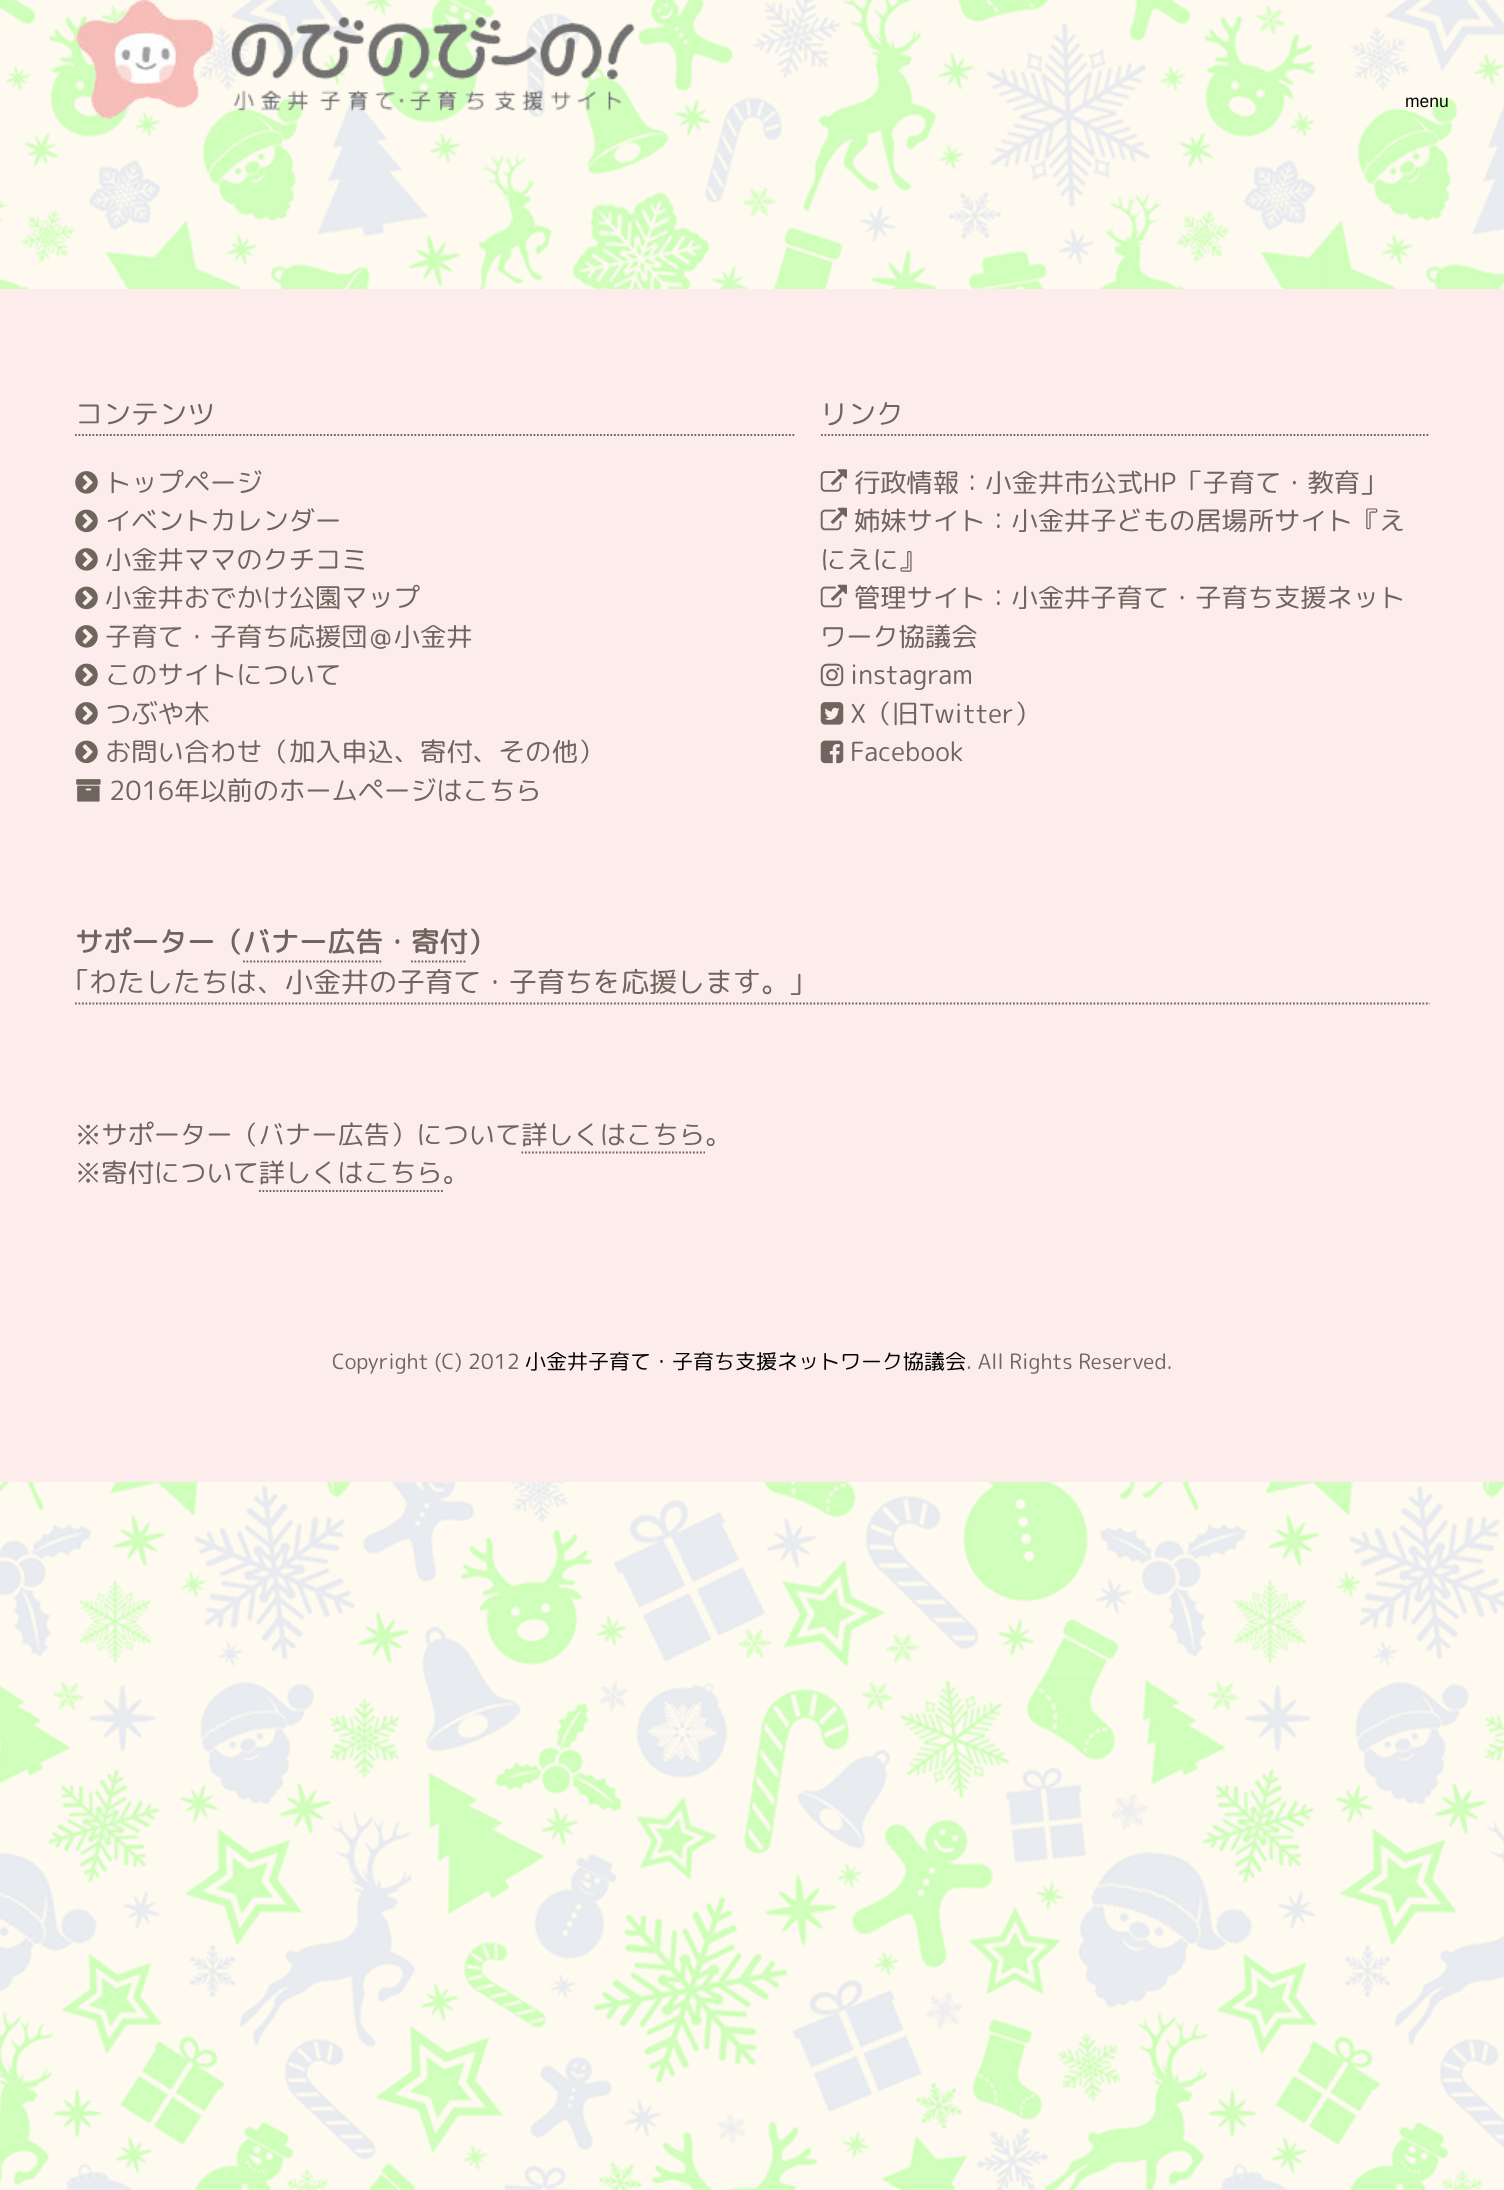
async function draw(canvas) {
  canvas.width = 1504
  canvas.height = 2190
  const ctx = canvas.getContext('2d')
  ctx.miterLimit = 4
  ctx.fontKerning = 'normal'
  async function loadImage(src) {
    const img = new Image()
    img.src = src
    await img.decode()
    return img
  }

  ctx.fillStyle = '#fff'
  ctx.fillRect(0, 0, 1504, 2190)
  ctx.drawImage(await loadImage('image0.png'), 0, 0, 1504, 2190)
  ctx.drawImage(await loadImage('image1.png'), 75, 0, 560, 119)
  ctx.font = '17.5px Liberation Sans'
  ctx.fillStyle = '#000'
  ctx.fillText('menu', 1405, 107)
  ctx.fillStyle = '#fcecec'
  ctx.fillRect(0, 289, 1504, 1193)
  ctx.beginPath()
  ctx.moveTo(75, 435)
  ctx.lineTo(794.5, 435)
  ctx.strokeStyle = '#6e655c'
  ctx.lineWidth = 1.8
  ctx.setLineDash([1.75, 1.75])
  ctx.stroke()
  ctx.font = '28px "Rounded Mplus 1c"'
  ctx.fillStyle = '#6e655c'
  ctx.fillText('コンテンツ', 75, 424)
  ctx.drawImage(await loadImage('image2.png'), 75, 471, 23, 23)
  ctx.font = '26.25px "Rounded Mplus 1c"'
  ctx.fillText('トップページ', 105, 492)
  ctx.drawImage(await loadImage('image3.png'), 75, 509, 23, 24)
  ctx.fillText('イベントカレンダー', 105, 530)
  ctx.drawImage(await loadImage('image4.png'), 75, 548, 23, 23)
  ctx.fillText('小金井ママのクチコミ', 105, 569)
  ctx.drawImage(await loadImage('image3.png'), 75, 586, 23, 24)
  ctx.fillText('小金井おでかけ公園マップ', 105, 607)
  ctx.drawImage(await loadImage('image4.png'), 75, 625, 23, 23)
  ctx.fillText('子育て・子育ち応援団＠小金井', 105, 646)
  ctx.drawImage(await loadImage('image3.png'), 75, 663, 23, 24)
  ctx.fillText('このサイトについて', 105, 684)
  ctx.drawImage(await loadImage('image4.png'), 75, 702, 23, 23)
  ctx.fillText('つぶや木', 105, 723)
  ctx.drawImage(await loadImage('image3.png'), 75, 740, 23, 24)
  ctx.fillText('お問い合わせ（加入申込、寄付、その他）', 105, 761)
  ctx.drawImage(await loadImage('image5.png'), 76, 779, 25, 23)
  ctx.fillText('2016年以前のホームページはこちら', 109, 800)
  ctx.beginPath()
  ctx.moveTo(821, 435)
  ctx.lineTo(1430, 435)
  ctx.stroke()
  ctx.font = '28px "Rounded Mplus 1c"'
  ctx.fillText('リンク', 820, 424)
  ctx.drawImage(await loadImage('image6.png'), 820, 469, 27, 23)
  ctx.font = '26.25px "Rounded Mplus 1c"'
  ctx.fillText('行政情報：小金井市公式HP「子育て・教育」', 854, 492)
  ctx.drawImage(await loadImage('image7.png'), 820, 507, 27, 24)
  ctx.fillText('姉妹サイト：小金井子どもの居場所サイト『え', 854, 530)
  ctx.fillText('にえに』', 820, 569)
  ctx.drawImage(await loadImage('image7.png'), 820, 584, 27, 24)
  ctx.fillText('管理サイト：小金井子育て・子育ち支援ネット', 854, 607)
  ctx.fillText('ワーク協議会', 820, 646)
  ctx.drawImage(await loadImage('image8.png'), 820, 663, 24, 24)
  ctx.fillText('instagram', 850, 684)
  ctx.drawImage(await loadImage('image9.png'), 820, 702, 24, 23)
  ctx.fillText('X（旧Twitter）', 850, 723)
  ctx.drawImage(await loadImage('image10.png'), 820, 740, 24, 24)
  ctx.fillText('Facebook', 850, 761)
  ctx.beginPath()
  ctx.moveTo(75, 1003.5)
  ctx.lineTo(1430, 1003.5)
  ctx.stroke()
  ctx.font = 'bold 28px "Rounded Mplus 1c"'
  ctx.fillText('サポーター（バナー広告・寄付）', 75, 952)
  ctx.beginPath()
  ctx.moveTo(243, 961.5)
  ctx.lineTo(383, 961.5)
  ctx.stroke()
  ctx.beginPath()
  ctx.moveTo(411, 961.5)
  ctx.lineTo(467, 961.5)
  ctx.stroke()
  ctx.font = '28px "Rounded Mplus 1c"'
  ctx.fillText('｢わたしたちは、小金井の子育て・子育ちを応援します。｣', 75, 992)
  ctx.font = '26.25px "Rounded Mplus 1c"'
  ctx.fillText('※サポーター（バナー広告）について詳しくはこちら。', 75, 1144)
  ctx.beginPath()
  ctx.moveTo(521.5, 1152.5)
  ctx.lineTo(705, 1152.5)
  ctx.stroke()
  ctx.fillText('※寄付について詳しくはこちら。', 75, 1182)
  ctx.beginPath()
  ctx.moveTo(259, 1191)
  ctx.lineTo(443, 1191)
  ctx.stroke()
  ctx.font = '21px "Rounded Mplus 1c"'
  ctx.fillText('Copyright (C) 2012', 332, 1369)
  ctx.fillStyle = '#000'
  ctx.fillText('小金井子育て・子育ち支援ネットワーク協議会', 525, 1369)
  ctx.fillStyle = '#6e655c'
  ctx.fillText('. All Rights Reserved.', 966, 1369)
}

draw(document.querySelector('canvas'))
